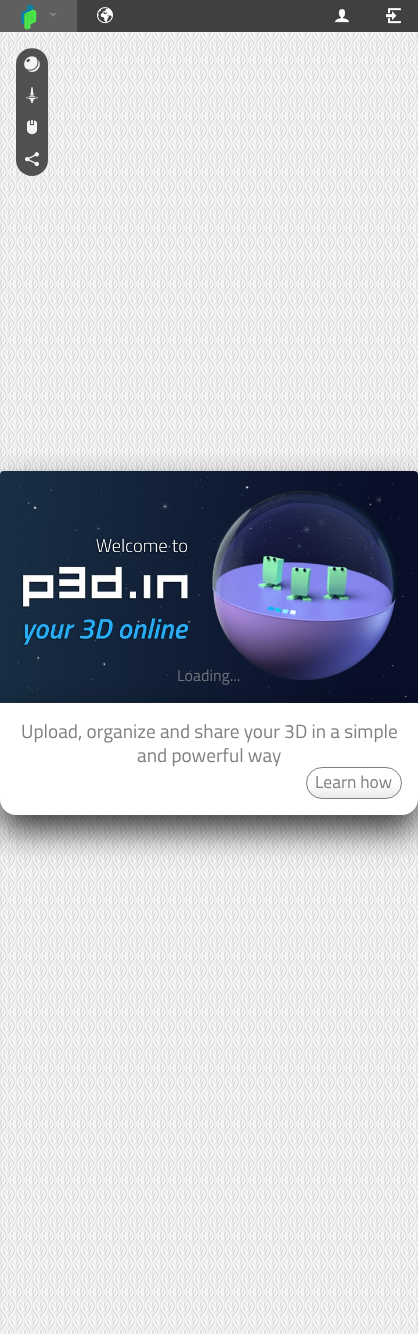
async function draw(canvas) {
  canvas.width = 418
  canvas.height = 1334
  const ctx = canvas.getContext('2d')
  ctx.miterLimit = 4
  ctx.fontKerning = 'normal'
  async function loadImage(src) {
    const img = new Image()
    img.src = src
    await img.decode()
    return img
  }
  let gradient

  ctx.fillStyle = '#fff'
  ctx.fillRect(0, 0, 418, 1334)
  ctx.fillStyle = '#404040'
  ctx.fillRect(77, 0, 341, 32)
  ctx.fillStyle = '#5f5f5f'
  ctx.fillRect(0, 0, 77, 32)
  ctx.drawImage(await loadImage('image0.png'), 21, 4, 13, 21)
  ctx.drawImage(await loadImage('image1.png'), 24, 9, 13, 21)
  ctx.fillStyle = '#808080'
  ctx.beginPath()
  ctx.moveTo(49, 13)
  ctx.lineTo(53, 17)
  ctx.lineTo(57, 13)
  ctx.closePath()
  ctx.fill()
  ctx.drawImage(await loadImage('image2.png'), 97, 7, 16, 17)
  ctx.drawImage(await loadImage('image3.png'), 335, 9, 14, 14)
  ctx.drawImage(await loadImage('image4.png'), 386, 8, 15, 16)
  ctx.drawImage(await loadImage('image9.png'), 0, 32, 418, 1302)
  ctx.fillStyle = '#505050'
  ctx.beginPath()
  ctx.roundRect(16, 48, 32, 128, 16)
  ctx.fill()
  ctx.fillStyle = '#ffffff40'
  ctx.fillRect(24, 48, 16, 1)
  ctx.drawImage(await loadImage('image5.png'), 24, 56, 16, 16)
  ctx.drawImage(await loadImage('image6.png'), 25, 87, 14, 17)
  ctx.drawImage(await loadImage('image7.png'), 27, 120, 10, 15)
  ctx.drawImage(await loadImage('image8.png'), 25, 152, 14, 15)
  ctx.fillStyle = '#000000bf'
  ctx.filter = 'blur(16px)'
  ctx.beginPath()
  ctx.rect(0, 487, 418, 232)
  ctx.fill()
  ctx.filter = 'none'
  ctx.drawImage(await loadImage('image10.png'), 0, 471, 418, 232)
  ctx.font = '16px Titillium Web'
  ctx.fillStyle = '#6e727a'
  ctx.fillText('Loading...', 177, 681)
  ctx.fillStyle = '#000000bf'
  ctx.filter = 'blur(16px)'
  ctx.beginPath()
  ctx.roundRect(0, 719, 418, 112, 16)
  ctx.fill()
  ctx.filter = 'none'
  ctx.fillStyle = '#fff'
  ctx.beginPath()
  ctx.roundRect(0, 703, 418, 112, [0, 0, 16, 16])
  ctx.fill()
  ctx.font = '19.25px Titillium Web'
  ctx.fillStyle = '#808080'
  ctx.fillText('Upload, organize and share your 3D in a simple', 21, 738)
  ctx.fillText('and powerful way', 137, 762)
  ctx.save()
  ctx.beginPath()
  ctx.roundRect(306, 767, 96, 32, 16)
  ctx.clip()
  gradient = ctx.createLinearGradient(354, 768, 354, 798)
  gradient.addColorStop(0, '#fff')
  gradient.addColorStop(0.5, '#fff')
  gradient.addColorStop(1, '#eaeaea')
  ctx.fillStyle = gradient
  ctx.fillRect(306, 768, 96, 30)
  ctx.restore()
  ctx.beginPath()
  ctx.roundRect(306.5, 767.5, 95, 31, 15.5)
  ctx.strokeStyle = '#808080'
  ctx.stroke()
  ctx.font = '17.5px Titillium Web'
  ctx.fillText('Learn how', 315, 788)
}

draw(document.querySelector('canvas'))
